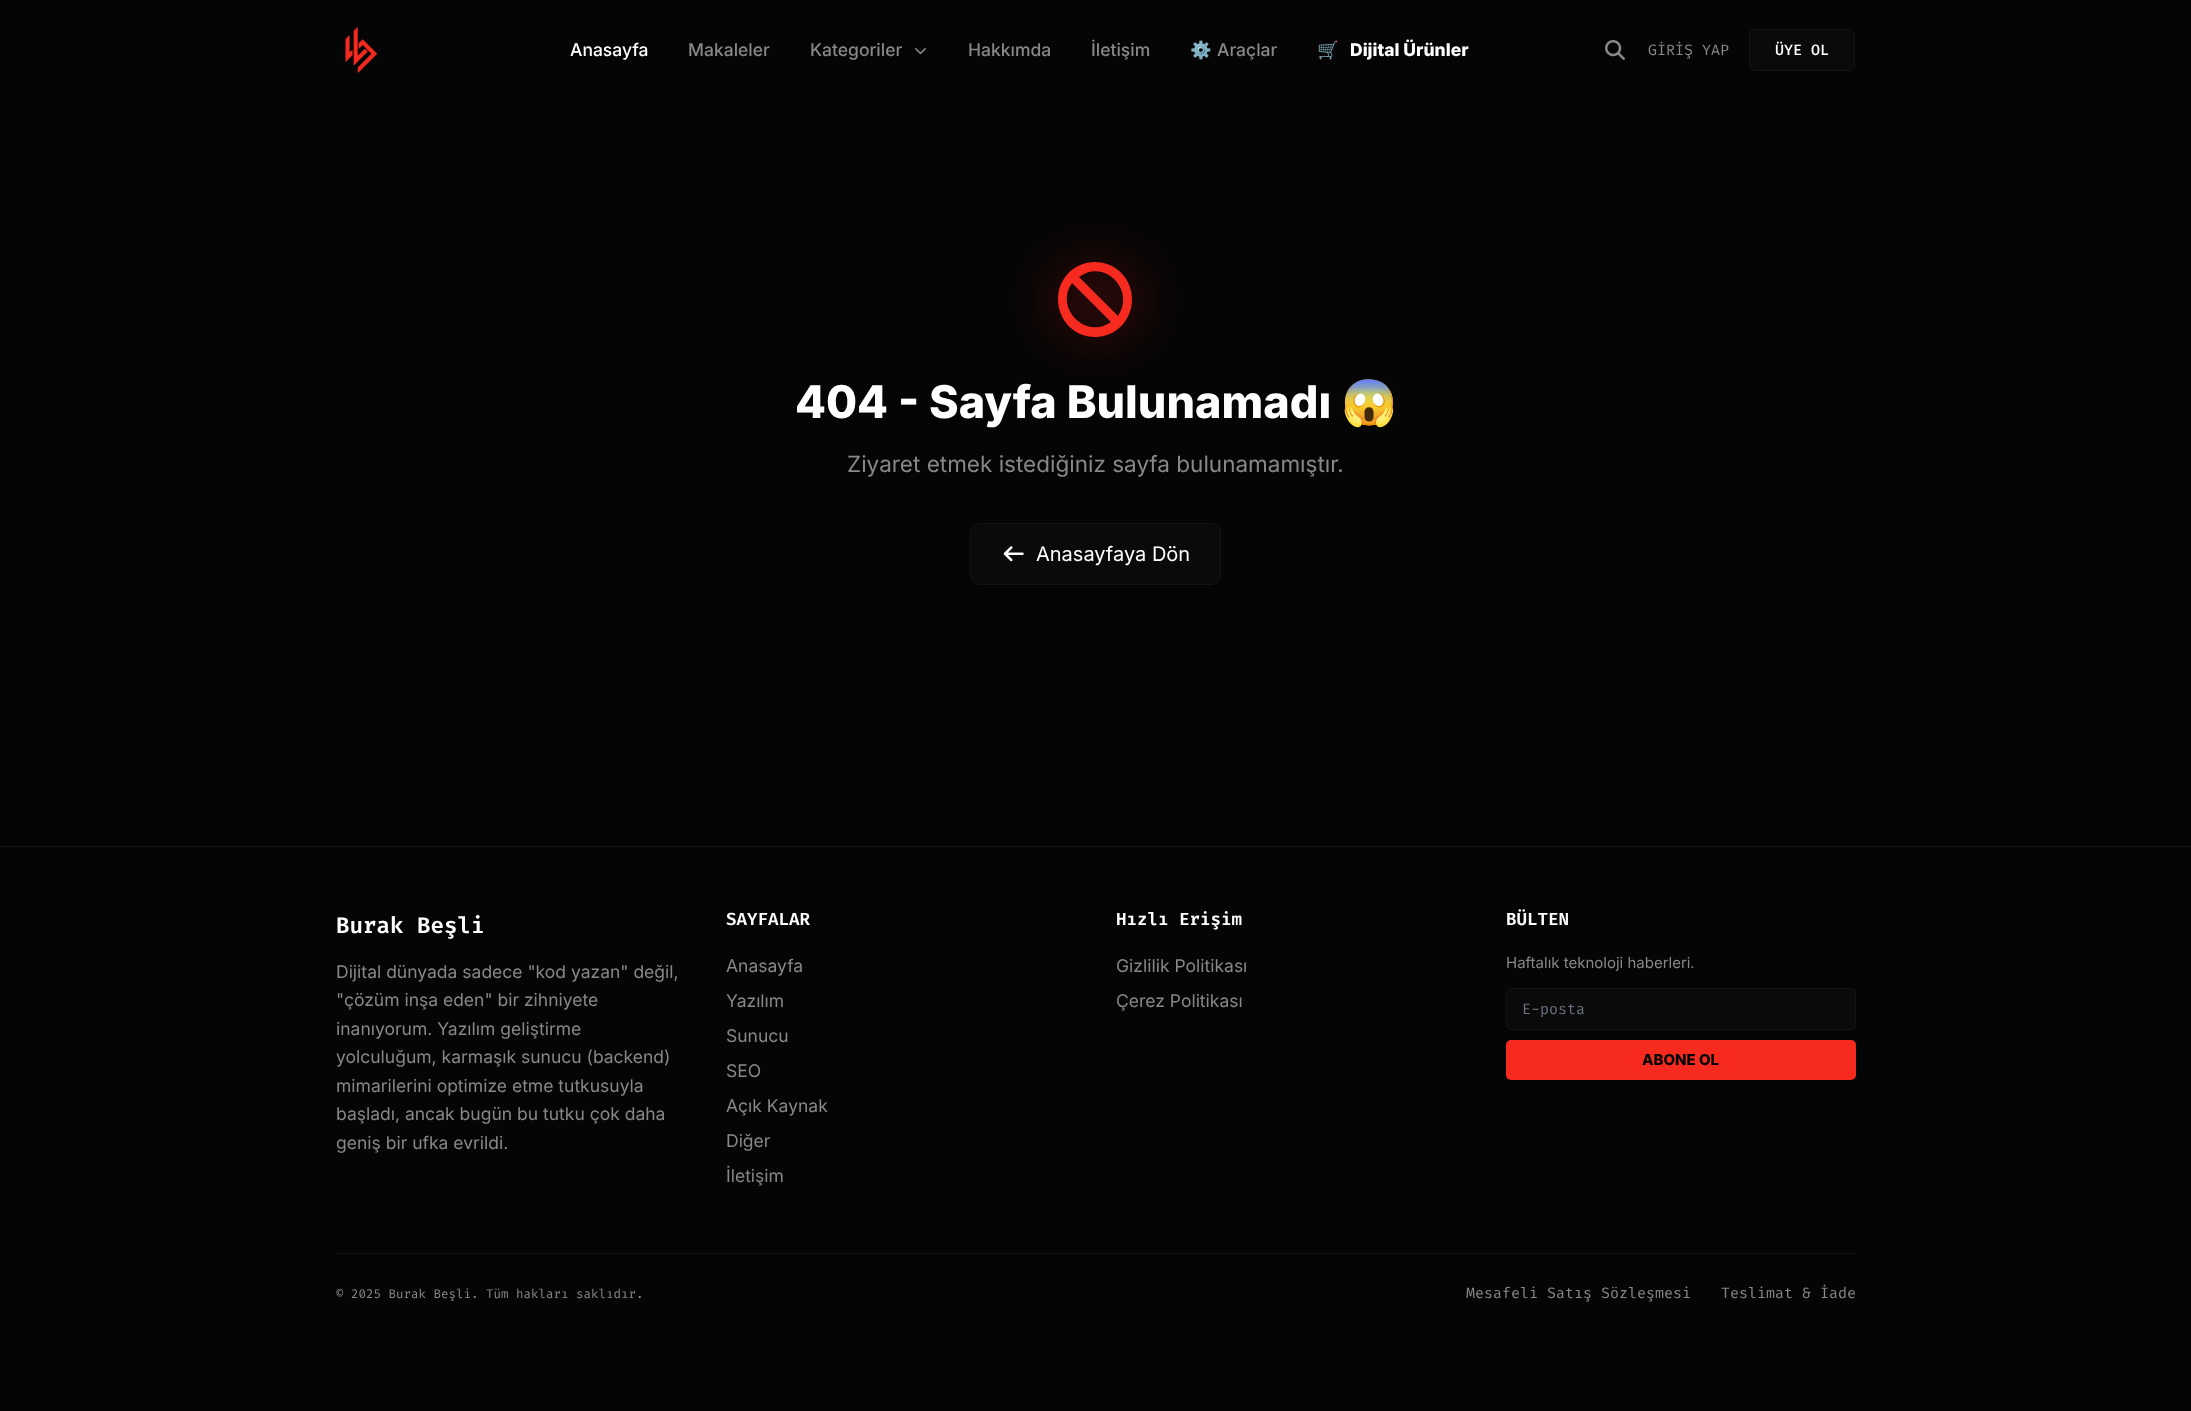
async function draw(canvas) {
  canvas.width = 2191
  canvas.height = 1411
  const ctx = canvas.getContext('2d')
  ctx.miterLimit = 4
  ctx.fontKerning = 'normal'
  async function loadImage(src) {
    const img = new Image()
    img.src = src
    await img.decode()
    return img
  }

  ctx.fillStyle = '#050505'
  ctx.fillRect(0, 0, 2191, 1411)
  ctx.drawImage(await loadImage('image0.png'), 344, 27, 34, 46)
  ctx.font = '500 17.5px Inter'
  ctx.fillStyle = '#fff'
  ctx.fillText('Anasayfa', 570, 56)
  ctx.fillStyle = '#888'
  ctx.fillText('Makaleler', 688, 56)
  ctx.fillText('Kategoriler', 810, 56)
  ctx.drawImage(await loadImage('image1.png'), 915, 48, 11, 7)
  ctx.fillText('Hakkımda', 968, 56)
  ctx.fillText('İletişim', 1091, 56)
  ctx.font = '17.5px Noto Color Emoji'
  ctx.fillText('⚙️', 1190, 56)
  ctx.font = '500 17.5px Inter'
  ctx.fillText('Araçlar', 1217, 56)
  ctx.font = 'bold 17.5px Noto Color Emoji'
  ctx.fillStyle = '#fff'
  ctx.fillText('🛒', 1317, 56)
  ctx.font = '800 17.5px Inter'
  ctx.fillText('Dijital Ürünler', 1350, 56)
  ctx.drawImage(await loadImage('image2.png'), 1605, 40, 20, 20)
  ctx.font = '15px Fira Code'
  ctx.fillStyle = '#888'
  ctx.fillText('GİRİŞ YAP', 1648, 55)
  ctx.fillStyle = '#0a0a0a'
  ctx.beginPath()
  ctx.roundRect(1749.5, 29.5, 105, 41, 4.5)
  ctx.fill()
  ctx.strokeStyle = '#141414'
  ctx.stroke()
  ctx.font = '500 15px Fira Code'
  ctx.fillStyle = '#fff'
  ctx.fillText('ÜYE OL', 1775, 55)
  ctx.fillStyle = '#f72a1f33'
  ctx.filter = 'blur(30px)'
  ctx.beginPath()
  ctx.roundRect(1049, 263, 94, 75, 37.5)
  ctx.fill()
  ctx.filter = 'none'
  ctx.fillStyle = '#f72a1f'
  ctx.beginPath()
  ctx.moveTo(1111, 322)
  ctx.lineTo(1072, 283)
  ctx.bezierCurveTo(1054, 308, 1086, 340, 1111, 322)
  ctx.closePath()
  ctx.moveTo(1118, 316)
  ctx.bezierCurveTo(1136, 290, 1104, 258, 1079, 277)
  ctx.closePath()
  ctx.moveTo(1058, 299)
  ctx.bezierCurveTo(1058, 279, 1074, 262, 1095, 262)
  ctx.bezierCurveTo(1116, 262, 1132, 279, 1132, 299)
  ctx.bezierCurveTo(1132, 320, 1116, 337, 1095, 337)
  ctx.bezierCurveTo(1074, 337, 1058, 320, 1058, 299)
  ctx.closePath()
  ctx.fill()
  ctx.font = '800 45px Inter'
  ctx.fillStyle = '#fff'
  ctx.fillText('404 - Sayfa Bulunamadı', 795, 418)
  ctx.font = 'bold 45px Noto Color Emoji'
  ctx.fillText('😱', 1341, 418)
  ctx.font = '22.5px Inter'
  ctx.fillStyle = '#888'
  ctx.fillText('Ziyaret etmek istediğiniz sayfa bulunamamıştır.', 847, 472)
  ctx.fillStyle = '#0a0a0a'
  ctx.beginPath()
  ctx.roundRect(970.5, 523.5, 250, 61, 9.5)
  ctx.fill()
  ctx.stroke()
  ctx.drawImage(await loadImage('image3.png'), 1003, 546, 21, 16)
  ctx.font = '20px Inter'
  ctx.fillStyle = '#fff'
  ctx.fillText('Anasayfaya Dön', 1036, 561)
  ctx.fillStyle = '#141414'
  ctx.fillRect(0, 846, 2191, 1)
  ctx.font = '600 22.5px Fira Code'
  ctx.fillStyle = '#fff'
  ctx.fillText('Burak Beşli', 336, 933)
  ctx.font = '17.5px Inter'
  ctx.fillStyle = '#888'
  ctx.fillText('Dijital dünyada sadece "kod yazan" değil,', 336, 978)
  ctx.fillText('"çözüm inşa eden" bir zihniyete', 336, 1006)
  ctx.fillText('inanıyorum. Yazılım geliştirme', 336, 1035)
  ctx.fillText('yolculuğum, karmaşık sunucu (backend)', 336, 1063)
  ctx.fillText('mimarilerini optimize etme tutkusuyla', 336, 1092)
  ctx.fillText('başladı, ancak bugün bu tutku çok daha', 336, 1120)
  ctx.fillText('geniş bir ufka evrildi.', 336, 1149)
  ctx.font = '600 17.5px Fira Code'
  ctx.fillStyle = '#fff'
  ctx.fillText('SAYFALAR', 726, 925)
  ctx.font = '17.5px Inter'
  ctx.fillStyle = '#888'
  ctx.fillText('Anasayfa', 726, 972)
  ctx.fillText('Yazılım', 726, 1007)
  ctx.fillText('Sunucu', 726, 1042)
  ctx.fillText('SEO', 726, 1077)
  ctx.fillText('Açık Kaynak', 726, 1112)
  ctx.fillText('Diğer', 726, 1147)
  ctx.fillText('İletişim', 726, 1182)
  ctx.font = '600 17.5px Fira Code'
  ctx.fillStyle = '#fff'
  ctx.fillText('Hızlı Erişim', 1116, 925)
  ctx.font = '17.5px Inter'
  ctx.fillStyle = '#888'
  ctx.fillText('Gizlilik Politikası', 1116, 972)
  ctx.fillText('Çerez Politikası', 1116, 1007)
  ctx.font = '600 17.5px Fira Code'
  ctx.fillStyle = '#fff'
  ctx.fillText('BÜLTEN', 1506, 925)
  ctx.font = '15px Inter'
  ctx.fillStyle = '#888'
  ctx.fillText('Haftalık teknoloji haberleri.', 1506, 968)
  ctx.fillStyle = '#0a0a0a'
  ctx.beginPath()
  ctx.roundRect(1506.5, 988.5, 349, 41, 4.5)
  ctx.fill()
  ctx.stroke()
  ctx.font = '15px Fira Code'
  ctx.fillStyle = '#6b7280'
  ctx.fillText('E-posta', 1522, 1014)
  ctx.fillStyle = '#f72a1f'
  ctx.beginPath()
  ctx.roundRect(1506, 1040, 350, 40, 5)
  ctx.fill()
  ctx.font = '800 15px Inter'
  ctx.fillStyle = '#050505'
  ctx.fillText('ABONE OL', 1642, 1065)
  ctx.fillStyle = '#141414'
  ctx.fillRect(336, 1253, 1520, 1)
  ctx.font = '12.5px Fira Code'
  ctx.fillStyle = '#888'
  ctx.fillText('© 2025 Burak Beşli. Tüm hakları saklıdır.', 336, 1298)
  ctx.font = '15px Fira Code'
  ctx.fillText('Mesafeli Satış Sözleşmesi', 1466, 1298)
  ctx.fillText('Teslimat & İade', 1721, 1298)
}

draw(document.querySelector('canvas'))
